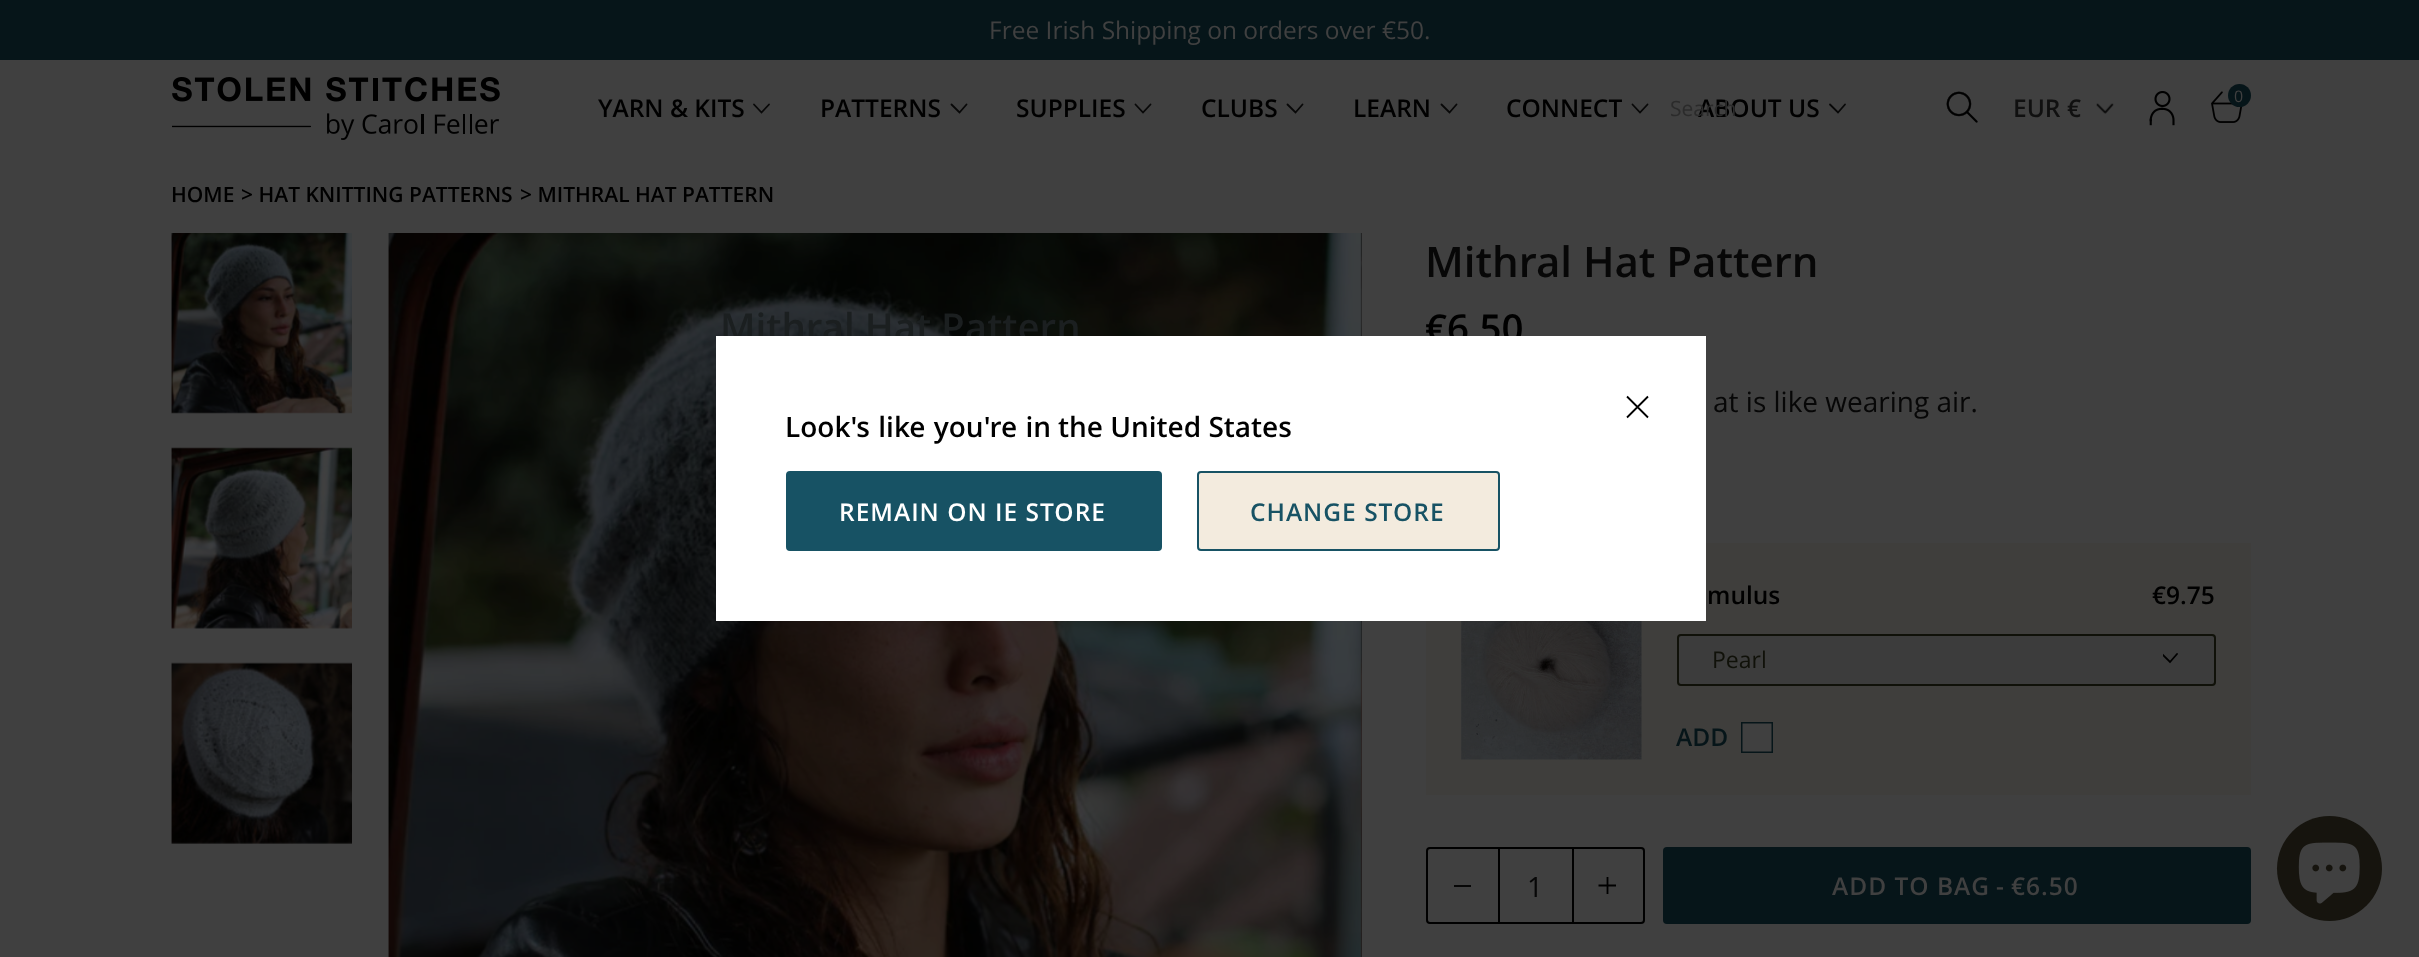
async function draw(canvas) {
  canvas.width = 2419
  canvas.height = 957
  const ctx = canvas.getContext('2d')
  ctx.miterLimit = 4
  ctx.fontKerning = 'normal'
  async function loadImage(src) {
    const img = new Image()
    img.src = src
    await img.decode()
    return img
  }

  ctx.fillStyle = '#404040'
  ctx.fillRect(0, 0, 2419, 957)
  ctx.fillStyle = '#061519'
  ctx.fillRect(0, 0, 2419, 60)
  ctx.font = '24.5px Open Sans'
  ctx.fillStyle = '#404040'
  ctx.fillText('Free Irish Shipping on orders over €50.', 989, 39)
  ctx.drawImage(await loadImage('image0.png'), 172, 77, 328, 63)
  ctx.font = '600 24.5px Open Sans'
  ctx.fillStyle = '#000'
  ctx.fillText('YARN & KITS', 598, 117)
  ctx.beginPath()
  ctx.moveTo(754, 104.5)
  ctx.lineTo(761.5, 112.5)
  ctx.lineTo(769, 104.5)
  ctx.strokeStyle = '#080808'
  ctx.lineWidth = 1.8
  ctx.lineCap = 'round'
  ctx.stroke()
  ctx.fillText('PATTERNS', 820, 117)
  ctx.beginPath()
  ctx.moveTo(951.5, 104.5)
  ctx.lineTo(959.5, 112.5)
  ctx.lineTo(966.5, 104.5)
  ctx.stroke()
  ctx.fillText('SUPPLIES', 1016, 117)
  ctx.beginPath()
  ctx.moveTo(1135.5, 104.5)
  ctx.lineTo(1143, 112.5)
  ctx.lineTo(1150.5, 104.5)
  ctx.stroke()
  ctx.fillText('CLUBS', 1201, 117)
  ctx.beginPath()
  ctx.moveTo(1287.5, 104.5)
  ctx.lineTo(1295.5, 112.5)
  ctx.lineTo(1302.5, 104.5)
  ctx.stroke()
  ctx.fillText('LEARN', 1353, 117)
  ctx.beginPath()
  ctx.moveTo(1441.5, 104.5)
  ctx.lineTo(1449.5, 112.5)
  ctx.lineTo(1456.5, 104.5)
  ctx.stroke()
  ctx.fillText('CONNECT', 1506, 117)
  ctx.beginPath()
  ctx.moveTo(1632.5, 104.5)
  ctx.lineTo(1640, 112.5)
  ctx.lineTo(1647.5, 104.5)
  ctx.stroke()
  ctx.fillText('ABOUT US', 1698, 117)
  ctx.beginPath()
  ctx.moveTo(1830, 104.5)
  ctx.lineTo(1838, 112.5)
  ctx.lineTo(1845, 104.5)
  ctx.stroke()
  ctx.font = '21px Open Sans'
  ctx.fillStyle = '#2b2b2b'
  ctx.fillText('Search', 1670, 116)
  ctx.drawImage(await loadImage('image1.png'), 1946, 91, 32, 32)
  ctx.font = '600 24.5px Open Sans'
  ctx.fillStyle = '#101010'
  ctx.fillText('EUR €', 2013, 117)
  ctx.drawImage(await loadImage('image2.png'), 2096, 103, 18, 11)
  ctx.drawImage(await loadImage('image3.png'), 2149, 91, 26, 35)
  ctx.drawImage(await loadImage('image4.png'), 2211, 91, 32, 32)
  ctx.fillStyle = '#061519'
  ctx.beginPath()
  ctx.arc(2239.5, 95.5, 11.5, 0, 2 * Math.PI)
  ctx.fill()
  ctx.font = '16px Open Sans'
  ctx.fillStyle = '#404040'
  ctx.fillText('0', 2234, 102)
  ctx.font = '600 21px Open Sans'
  ctx.fillStyle = '#000'
  ctx.fillText('HOME', 171, 202)
  ctx.fillText('> HAT KNITTING PATTERNS', 241, 202)
  ctx.fillText('> MITHRAL HAT PATTERN', 520, 202)
  ctx.drawImage(await loadImage('image5.png'), 171, 233, 181, 181)
  ctx.drawImage(await loadImage('image6.png'), 171, 447, 181, 182)
  ctx.drawImage(await loadImage('image7.png'), 171, 662, 181, 182)
  ctx.drawImage(await loadImage('image8.png'), 388, 233, 974, 724)
  ctx.drawImage(await loadImage('image9.png'), 1360, 233, 2, 724)
  ctx.font = '600 42px "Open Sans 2"'
  ctx.fillStyle = '#070707'
  ctx.fillText('Mithral Hat Pattern', 1425, 277)
  ctx.font = '600 38.5px Open Sans'
  ctx.fillStyle = '#000'
  ctx.fillText('€6.50', 1425, 342)
  ctx.font = '28px Open Sans'
  ctx.fillStyle = '#070707'
  ctx.fillText('at is like wearing air.', 1713, 412)
  ctx.fillStyle = '#3f3e3c'
  ctx.fillRect(1426, 543, 825, 252)
  ctx.drawImage(await loadImage('image10.png'), 1461, 621, 181, 139)
  ctx.font = '600 24.5px Open Sans'
  ctx.fillStyle = '#000'
  ctx.fillText('mulus', 1707, 604)
  ctx.fillText('€9.75', 2152, 604)
  ctx.fillStyle = '#3c3c3c'
  ctx.beginPath()
  ctx.roundRect(1678, 635, 537, 50, 3)
  ctx.fill()
  ctx.strokeStyle = '#101109'
  ctx.lineWidth = 2
  ctx.stroke()
  ctx.font = '23px Open Sans'
  ctx.fillStyle = '#101109'
  ctx.fillText('Pearl', 1712, 668)
  ctx.save()
  ctx.beginPath()
  ctx.rect(2163, 653, 18, 12)
  ctx.clip()
  ctx.beginPath()
  ctx.moveTo(2162, 654)
  ctx.lineTo(2170, 662)
  ctx.lineTo(2177, 654)
  ctx.strokeStyle = '#000'
  ctx.lineWidth = 1.8
  ctx.stroke()
  ctx.restore()
  ctx.font = '600 24.5px Open Sans'
  ctx.fillStyle = '#061519'
  ctx.fillText('ADD', 1676, 746)
  ctx.fillStyle = '#404040'
  ctx.beginPath()
  ctx.rect(1741.75, 722.75, 30.5, 29.5)
  ctx.fill()
  ctx.strokeStyle = '#061519'
  ctx.lineWidth = 1.5
  ctx.stroke()
  ctx.beginPath()
  ctx.roundRect(1427, 848, 217, 75, 3)
  ctx.strokeStyle = '#000'
  ctx.lineWidth = 2
  ctx.stroke()
  ctx.fillStyle = '#070707'
  ctx.fillRect(1454, 885, 17, 2)
  ctx.fillStyle = '#000'
  ctx.fillRect(1572, 849, 2, 73)
  ctx.fillRect(1498, 849, 2, 73)
  ctx.font = '28px Open Sans'
  ctx.fillStyle = '#070707'
  ctx.fillText('1', 1527, 897)
  ctx.beginPath()
  ctx.moveTo(1598.5, 885.5)
  ctx.lineTo(1616, 885.5)
  ctx.moveTo(1607.5, 877)
  ctx.lineTo(1607.5, 894)
  ctx.lineWidth = 1.8
  ctx.lineCap = 'butt'
  ctx.stroke()
  ctx.fillStyle = '#061519'
  ctx.beginPath()
  ctx.roundRect(1663, 847, 588, 77, 4)
  ctx.fill()
  ctx.letterSpacing = '1px'
  ctx.font = '600 24.5px Open Sans'
  ctx.fillStyle = '#404040'
  ctx.fillText('ADD TO BAG', 1832, 895)
  ctx.fillText('-', 1996, 895)
  ctx.fillText('€6.50', 2011, 895)
  ctx.letterSpacing = '0px'
  ctx.font = '600 38.5px "Open Sans 2"'
  ctx.fillStyle = '#1b1f20'
  ctx.fillText('Mithral Hat Pattern', 720, 341)
  ctx.fillStyle = '#fff'
  ctx.fillRect(716, 336, 990, 285)
  ctx.beginPath()
  ctx.moveTo(1627, 417.5)
  ctx.lineTo(1648, 396.5)
  ctx.moveTo(1627, 396.5)
  ctx.lineTo(1648, 417.5)
  ctx.stroke()
  ctx.wordSpacing = '1px'
  ctx.font = '600 28px "Open Sans 2"'
  ctx.fillStyle = '#000'
  ctx.fillText('Look\'s like you\'re in', 785, 437)
  ctx.wordSpacing = '0px'
  ctx.fillText('the United States', 1058, 437)
  ctx.fillStyle = '#175264'
  ctx.beginPath()
  ctx.roundRect(787, 472, 374, 78, 3)
  ctx.fill()
  ctx.strokeStyle = '#175264'
  ctx.lineWidth = 2
  ctx.stroke()
  ctx.letterSpacing = '1px'
  ctx.font = '600 24.5px "Open Sans 2"'
  ctx.fillStyle = '#fff'
  ctx.fillText('REMAIN ON IE STORE', 839, 521)
  ctx.fillStyle = '#f3ebde'
  ctx.beginPath()
  ctx.roundRect(1198, 472, 301, 78, 3)
  ctx.fill()
  ctx.stroke()
  ctx.fillStyle = '#175264'
  ctx.fillText('CHANGE STORE', 1250, 521)
  ctx.fillStyle = '#16140e'
  ctx.beginPath()
  ctx.arc(2329.5, 868.5, 52.5, 0, 2 * Math.PI)
  ctx.fill()
  ctx.drawImage(await loadImage('image11.png'), 2298, 842, 62, 62)
}

draw(document.querySelector('canvas'))
